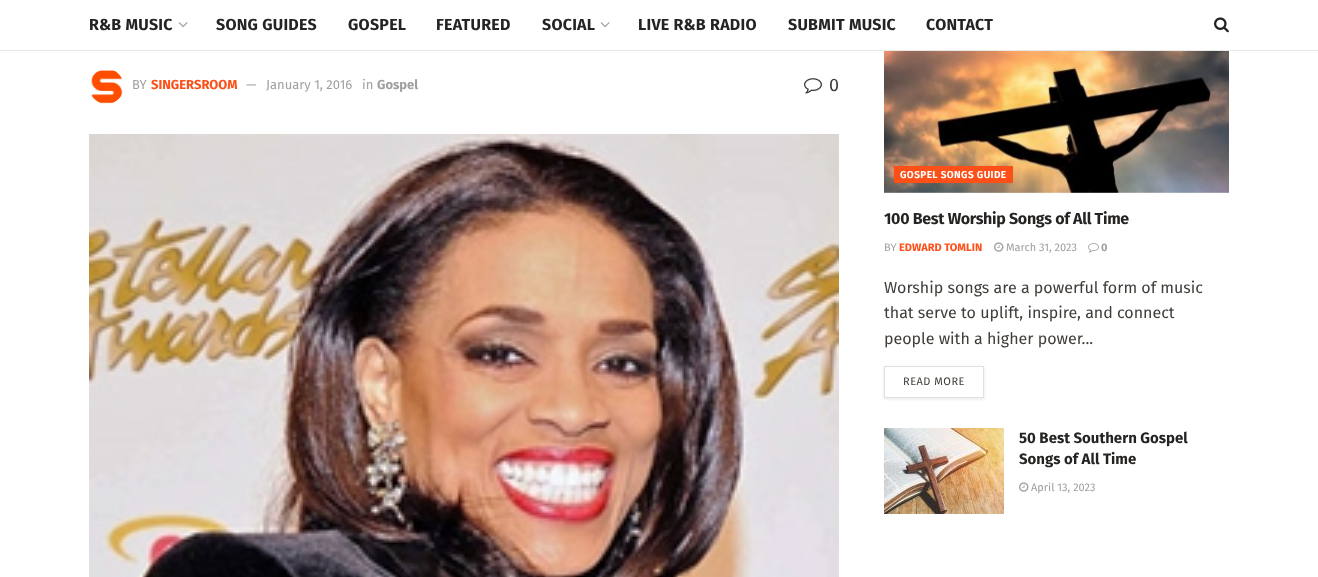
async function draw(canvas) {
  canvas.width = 1318
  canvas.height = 577
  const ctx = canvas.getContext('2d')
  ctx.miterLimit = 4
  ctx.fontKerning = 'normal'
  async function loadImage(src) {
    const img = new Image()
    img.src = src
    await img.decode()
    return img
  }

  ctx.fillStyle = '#fff'
  ctx.fillRect(0, 0, 1318, 577)
  ctx.fillStyle = '#e8e8e8'
  ctx.fillRect(0, 50, 1318, 1)
  ctx.letterSpacing = '0.25px'
  ctx.font = 'bold 16px Fira Sans'
  ctx.fillStyle = '#252422'
  ctx.fillText('R&B MUSIC', 89, 30)
  ctx.drawImage(await loadImage('image0.png'), 178, 22, 10, 6)
  ctx.fillText('SONG GUIDES', 216, 30)
  ctx.fillText('GOSPEL', 348, 30)
  ctx.fillText('FEATURED', 436, 30)
  ctx.fillText('SOCIAL', 542, 30)
  ctx.drawImage(await loadImage('image0.png'), 600, 22, 10, 6)
  ctx.fillText('LIVE R&B RADIO', 638, 30)
  ctx.fillText('SUBMIT MUSIC', 788, 30)
  ctx.fillText('CONTACT', 926, 30)
  ctx.drawImage(await loadImage('image1.png'), 1214, 17, 15, 16)
  ctx.drawImage(await loadImage('image2.png'), 91, 70, 32, 34)
  ctx.letterSpacing = '0px'
  ctx.font = '13px Fira Sans'
  ctx.fillStyle = '#a0a0a0'
  ctx.fillText('BY', 132, 89)
  ctx.font = 'bold 13px Fira Sans'
  ctx.fillStyle = '#fd4f18'
  ctx.fillText('SINGERSROOM', 151, 89)
  ctx.font = '13px Fira Sans'
  ctx.fillStyle = '#a0a0a0'
  ctx.fillText('—', 246, 89)
  ctx.fillText('January 1, 2016', 266, 89)
  ctx.fillText('in', 362, 89)
  ctx.font = 'bold 13px Fira Sans'
  ctx.fillText('Gospel', 377, 89)
  ctx.drawImage(await loadImage('image3.png'), 804, 78, 18, 16)
  ctx.font = '18px Fira Sans'
  ctx.fillStyle = '#403d39'
  ctx.fillText('0', 829, 91)
  ctx.drawImage(await loadImage('image4.png'), 89, 134, 750, 443)
  ctx.drawImage(await loadImage('image6.png'), 972, 192, 66, 1)
  ctx.drawImage(await loadImage('image5.png'), 884, 51, 345, 142)
  ctx.fillStyle = '#fd4f18'
  ctx.fillRect(894, 166, 119, 17)
  ctx.letterSpacing = '0.4px'
  ctx.font = 'bold 10px Fira Sans'
  ctx.fillStyle = '#fff'
  ctx.fillText('GOSPEL SONGS GUIDE', 900, 178)
  ctx.letterSpacing = '-0.3px'
  ctx.font = 'bold 16px Fira Sans'
  ctx.fillStyle = '#252422'
  ctx.fillText('100 Best Worship Songs of All Time', 884, 224)
  ctx.letterSpacing = '0px'
  ctx.font = '11px Fira Sans'
  ctx.fillStyle = '#a0a0a0'
  ctx.fillText('BY', 884, 251)
  ctx.font = 'bold 11px Fira Sans'
  ctx.fillStyle = '#fd4f18'
  ctx.fillText('EDWARD TOMLIN', 899, 251)
  ctx.drawImage(await loadImage('image7.png'), 994, 242, 10, 10)
  ctx.font = '11px Fira Sans'
  ctx.fillStyle = '#a0a0a0'
  ctx.fillText('March 31, 2023', 1006, 251)
  ctx.drawImage(await loadImage('image8.png'), 1088, 243, 11, 10)
  ctx.font = 'bold 11px Fira Sans'
  ctx.fillText('0', 1101, 251)
  ctx.font = '16px Fira Sans'
  ctx.fillStyle = '#403d39'
  ctx.fillText('Worship songs are a powerful form of music', 884, 293)
  ctx.fillText('that serve to uplift, inspire, and connect', 884, 318)
  ctx.fillText('people with a higher power...', 884, 344)
  ctx.save()
  ctx.beginPath()
  ctx.moveTo(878, 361)
  ctx.lineTo(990, 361)
  ctx.lineTo(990, 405)
  ctx.lineTo(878, 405)
  ctx.closePath()
  ctx.moveTo(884, 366)
  ctx.lineTo(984, 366)
  ctx.lineTo(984, 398)
  ctx.lineTo(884, 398)
  ctx.closePath()
  ctx.clip('evenodd')
  ctx.fillStyle = '#0000001a'
  ctx.filter = 'blur(1.5px)'
  ctx.beginPath()
  ctx.rect(884, 367, 100, 32)
  ctx.fill()
  ctx.filter = 'none'
  ctx.restore()
  ctx.strokeStyle = '#e0e0e0'
  ctx.strokeRect(884.5, 366.5, 99, 31)
  ctx.letterSpacing = '0.5px'
  ctx.font = '11px Fira Sans'
  ctx.fillText('READ MORE', 903, 385)
  ctx.drawImage(await loadImage('image9.png'), 884, 428, 120, 86)
  ctx.letterSpacing = '0px'
  ctx.font = 'bold 15px Fira Sans'
  ctx.fillStyle = '#252422'
  ctx.fillText('50 Best Southern Gospel', 1019, 443)
  ctx.fillText('Songs of All Time', 1019, 464)
  ctx.drawImage(await loadImage('image7.png'), 1019, 482, 10, 10)
  ctx.font = '11px Fira Sans'
  ctx.fillStyle = '#a0a0a0'
  ctx.fillText('April 13, 2023', 1031, 491)
}

draw(document.querySelector('canvas'))
